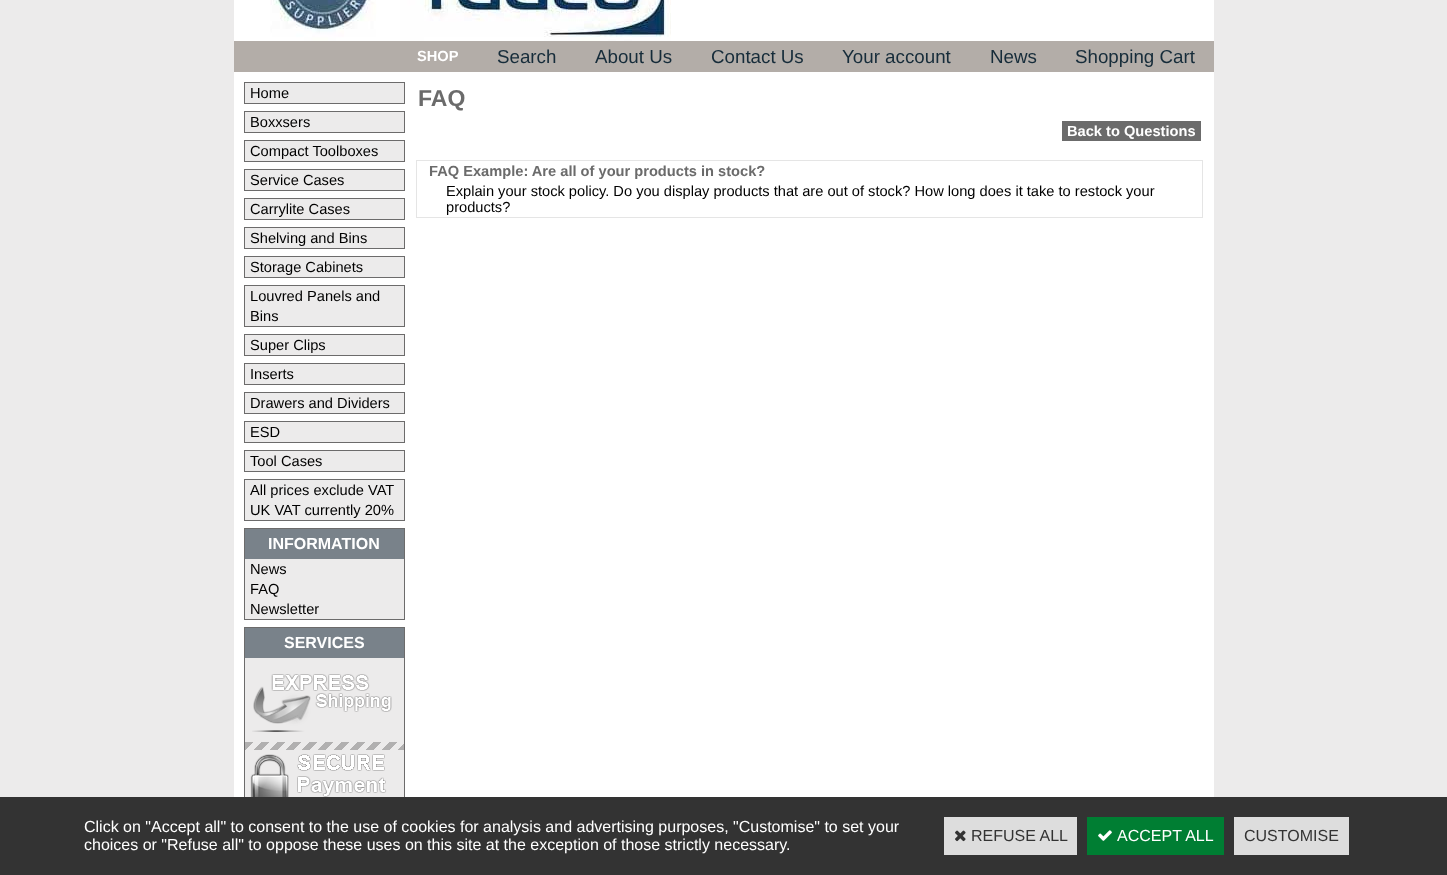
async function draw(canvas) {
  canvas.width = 1447
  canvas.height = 875
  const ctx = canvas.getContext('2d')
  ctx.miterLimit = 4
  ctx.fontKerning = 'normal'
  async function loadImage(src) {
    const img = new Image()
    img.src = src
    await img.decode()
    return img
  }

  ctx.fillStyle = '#ecebeb'
  ctx.fillRect(0, 0, 1447, 875)
  ctx.fillStyle = '#fff'
  ctx.fillRect(234, 0, 980, 797)
  ctx.drawImage(await loadImage('image0.png'), 270, 0, 401, 41)
  ctx.fillStyle = '#b3ada8'
  ctx.fillRect(234, 41, 980, 31)
  ctx.font = 'bold 14.65px Liberation Sans'
  ctx.fillStyle = '#fff'
  ctx.fillText('SHOP', 417, 61)
  ctx.font = '18.75px Liberation Sans'
  ctx.fillStyle = '#162c3a'
  ctx.fillText('Search', 497, 63)
  ctx.fillText('About Us', 595, 63)
  ctx.fillText('Contact Us', 711, 63)
  ctx.fillText('Your account', 842, 63)
  ctx.fillText('News', 990, 63)
  ctx.fillText('Shopping Cart', 1075, 63)
  ctx.fillStyle = '#6c6b6b'
  ctx.fillRect(244, 82, 161, 1)
  ctx.fillRect(404, 83, 1, 20)
  ctx.fillRect(244, 83, 1, 20)
  ctx.fillStyle = '#ecebeb'
  ctx.fillRect(245, 83, 159, 20)
  ctx.font = '14.65px Liberation Sans'
  ctx.fillStyle = '#000'
  ctx.fillText('Home', 250, 98)
  ctx.fillStyle = '#6c6b6b'
  ctx.fillRect(244, 103, 161, 1)
  ctx.fillRect(244, 111, 161, 1)
  ctx.fillRect(404, 112, 1, 20)
  ctx.fillRect(244, 112, 1, 20)
  ctx.fillStyle = '#ecebeb'
  ctx.fillRect(245, 112, 159, 20)
  ctx.fillStyle = '#000'
  ctx.fillText('Boxxsers', 250, 127)
  ctx.fillStyle = '#6c6b6b'
  ctx.fillRect(244, 132, 161, 1)
  ctx.fillRect(244, 140, 161, 1)
  ctx.fillRect(404, 141, 1, 20)
  ctx.fillRect(244, 141, 1, 20)
  ctx.fillStyle = '#ecebeb'
  ctx.fillRect(245, 141, 159, 20)
  ctx.fillStyle = '#000'
  ctx.fillText('Compact Toolboxes', 250, 156)
  ctx.fillStyle = '#6c6b6b'
  ctx.fillRect(244, 161, 161, 1)
  ctx.fillRect(244, 169, 161, 1)
  ctx.fillRect(404, 170, 1, 20)
  ctx.fillRect(244, 170, 1, 20)
  ctx.fillStyle = '#ecebeb'
  ctx.fillRect(245, 170, 159, 20)
  ctx.fillStyle = '#000'
  ctx.fillText('Service Cases', 250, 185)
  ctx.fillStyle = '#6c6b6b'
  ctx.fillRect(244, 190, 161, 1)
  ctx.fillRect(244, 198, 161, 1)
  ctx.fillRect(404, 199, 1, 20)
  ctx.fillRect(244, 199, 1, 20)
  ctx.fillStyle = '#ecebeb'
  ctx.fillRect(245, 199, 159, 20)
  ctx.fillStyle = '#000'
  ctx.fillText('Carrylite Cases', 250, 214)
  ctx.fillStyle = '#6c6b6b'
  ctx.fillRect(244, 219, 161, 1)
  ctx.fillRect(244, 227, 161, 1)
  ctx.fillRect(404, 228, 1, 20)
  ctx.fillRect(244, 228, 1, 20)
  ctx.fillStyle = '#ecebeb'
  ctx.fillRect(245, 228, 159, 20)
  ctx.fillStyle = '#000'
  ctx.fillText('Shelving and Bins', 250, 243)
  ctx.fillStyle = '#6c6b6b'
  ctx.fillRect(244, 248, 161, 1)
  ctx.fillRect(244, 256, 161, 1)
  ctx.fillRect(404, 257, 1, 20)
  ctx.fillRect(244, 257, 1, 20)
  ctx.fillStyle = '#ecebeb'
  ctx.fillRect(245, 257, 159, 20)
  ctx.fillStyle = '#000'
  ctx.fillText('Storage Cabinets', 250, 272)
  ctx.fillStyle = '#6c6b6b'
  ctx.fillRect(244, 277, 161, 1)
  ctx.fillRect(244, 285, 161, 1)
  ctx.fillRect(404, 286, 1, 40)
  ctx.fillRect(244, 286, 1, 40)
  ctx.fillStyle = '#ecebeb'
  ctx.fillRect(245, 286, 159, 40)
  ctx.fillStyle = '#000'
  ctx.fillText('Louvred Panels and', 250, 301)
  ctx.fillText('Bins', 250, 321)
  ctx.fillStyle = '#6c6b6b'
  ctx.fillRect(244, 326, 161, 1)
  ctx.fillRect(244, 334, 161, 1)
  ctx.fillRect(404, 335, 1, 20)
  ctx.fillRect(244, 335, 1, 20)
  ctx.fillStyle = '#ecebeb'
  ctx.fillRect(245, 335, 159, 20)
  ctx.fillStyle = '#000'
  ctx.fillText('Super Clips', 250, 350)
  ctx.fillStyle = '#6c6b6b'
  ctx.fillRect(244, 355, 161, 1)
  ctx.fillRect(244, 363, 161, 1)
  ctx.fillRect(404, 364, 1, 20)
  ctx.fillRect(244, 364, 1, 20)
  ctx.fillStyle = '#ecebeb'
  ctx.fillRect(245, 364, 159, 20)
  ctx.fillStyle = '#000'
  ctx.fillText('Inserts', 250, 379)
  ctx.fillStyle = '#6c6b6b'
  ctx.fillRect(244, 384, 161, 1)
  ctx.fillRect(244, 392, 161, 1)
  ctx.fillRect(404, 393, 1, 20)
  ctx.fillRect(244, 393, 1, 20)
  ctx.fillStyle = '#ecebeb'
  ctx.fillRect(245, 393, 159, 20)
  ctx.fillStyle = '#000'
  ctx.fillText('Drawers and Dividers', 250, 408)
  ctx.fillStyle = '#6c6b6b'
  ctx.fillRect(244, 413, 161, 1)
  ctx.fillRect(244, 421, 161, 1)
  ctx.fillRect(404, 422, 1, 20)
  ctx.fillRect(244, 422, 1, 20)
  ctx.fillStyle = '#ecebeb'
  ctx.fillRect(245, 422, 159, 20)
  ctx.fillStyle = '#000'
  ctx.fillText('ESD', 250, 437)
  ctx.fillStyle = '#6c6b6b'
  ctx.fillRect(244, 442, 161, 1)
  ctx.fillRect(244, 450, 161, 1)
  ctx.fillRect(404, 451, 1, 20)
  ctx.fillRect(244, 451, 1, 20)
  ctx.fillStyle = '#ecebeb'
  ctx.fillRect(245, 451, 159, 20)
  ctx.fillStyle = '#000'
  ctx.fillText('Tool Cases', 250, 466)
  ctx.fillStyle = '#6c6b6b'
  ctx.fillRect(244, 471, 161, 1)
  ctx.fillRect(244, 479, 161, 1)
  ctx.fillRect(404, 480, 1, 40)
  ctx.fillRect(244, 480, 1, 40)
  ctx.fillStyle = '#ecebeb'
  ctx.fillRect(245, 480, 159, 40)
  ctx.fillStyle = '#000'
  ctx.fillText('All prices exclude VAT', 250, 495)
  ctx.fillText('UK VAT currently 20%', 250, 515)
  ctx.fillStyle = '#6c6b6b'
  ctx.fillRect(244, 520, 161, 1)
  ctx.fillRect(244, 528, 161, 1)
  ctx.fillRect(404, 529, 1, 90)
  ctx.fillRect(244, 529, 1, 90)
  ctx.fillStyle = '#79828a'
  ctx.fillRect(245, 529, 159, 30)
  ctx.font = 'bold 16px Liberation Sans'
  ctx.fillStyle = '#fff'
  ctx.fillText('INFORMATION', 268, 549)
  ctx.fillStyle = '#ecebeb'
  ctx.fillRect(245, 559, 159, 60)
  ctx.font = '14.65px Liberation Sans'
  ctx.fillStyle = '#000'
  ctx.fillText('News', 250, 574)
  ctx.fillText('FAQ', 250, 594)
  ctx.fillText('Newsletter', 250, 614)
  ctx.fillStyle = '#6c6b6b'
  ctx.fillRect(244, 619, 161, 1)
  ctx.fillRect(244, 627, 161, 1)
  ctx.fillRect(404, 628, 1, 169)
  ctx.fillRect(244, 628, 1, 169)
  ctx.fillStyle = '#79828a'
  ctx.fillRect(245, 628, 159, 30)
  ctx.font = 'bold 16px Liberation Sans'
  ctx.fillStyle = '#fff'
  ctx.fillText('SERVICES', 284, 648)
  ctx.fillStyle = '#ecebeb'
  ctx.fillRect(245, 658, 159, 139)
  ctx.drawImage(await loadImage('image1.png'), 252, 674, 140, 58)
  ctx.drawImage(await loadImage('image2.png'), 245, 742, 159, 55)
  ctx.font = 'bold 23px Liberation Sans'
  ctx.fillStyle = '#6b6b6b'
  ctx.fillText('FAQ', 418, 106)
  ctx.fillRect(1062, 121, 139, 20)
  ctx.font = 'bold 14.65px Liberation Sans'
  ctx.fillStyle = '#fff'
  ctx.fillText('Back to Questions', 1067, 136)
  ctx.strokeStyle = '#e5e5e5'
  ctx.strokeRect(416.5, 160.5, 786, 57)
  ctx.fillStyle = '#6b6b6b'
  ctx.fillText('FAQ Example: Are all of your products in stock?', 429, 176)
  ctx.font = '14.65px Liberation Sans'
  ctx.fillStyle = '#000'
  ctx.fillText('Explain your stock policy. Do you display products that are out of stock? How long does it take to restock your', 446, 196)
  ctx.fillText('products?', 446, 212)
  ctx.fillStyle = '#333'
  ctx.fillRect(0, 797, 1447, 78)
  ctx.font = '16px Liberation Sans'
  ctx.fillStyle = '#fff'
  ctx.fillText('Click on "Accept all" to consent to the use of cookies for analysis and advertising purposes, "Customise" to set your', 84, 832)
  ctx.fillText('choices or "Refuse all" to oppose these uses on this site at the exception of those strictly necessary.', 84, 850)
  ctx.fillStyle = '#ddd'
  ctx.fillRect(944, 817, 133, 38)
  ctx.drawImage(await loadImage('image3.png'), 955, 830, 11, 12)
  ctx.fillStyle = '#333'
  ctx.fillText('REFUSE ALL', 971, 841)
  ctx.fillStyle = '#007e33'
  ctx.fillRect(1087, 817, 137, 38)
  ctx.drawImage(await loadImage('image4.png'), 1098, 830, 14, 11)
  ctx.fillStyle = '#fff'
  ctx.fillText('ACCEPT ALL', 1117, 841)
  ctx.fillStyle = '#ddd'
  ctx.fillRect(1234, 817, 115, 38)
  ctx.fillStyle = '#333'
  ctx.fillText('CUSTOMISE', 1244, 841)
}

draw(document.querySelector('canvas'))
